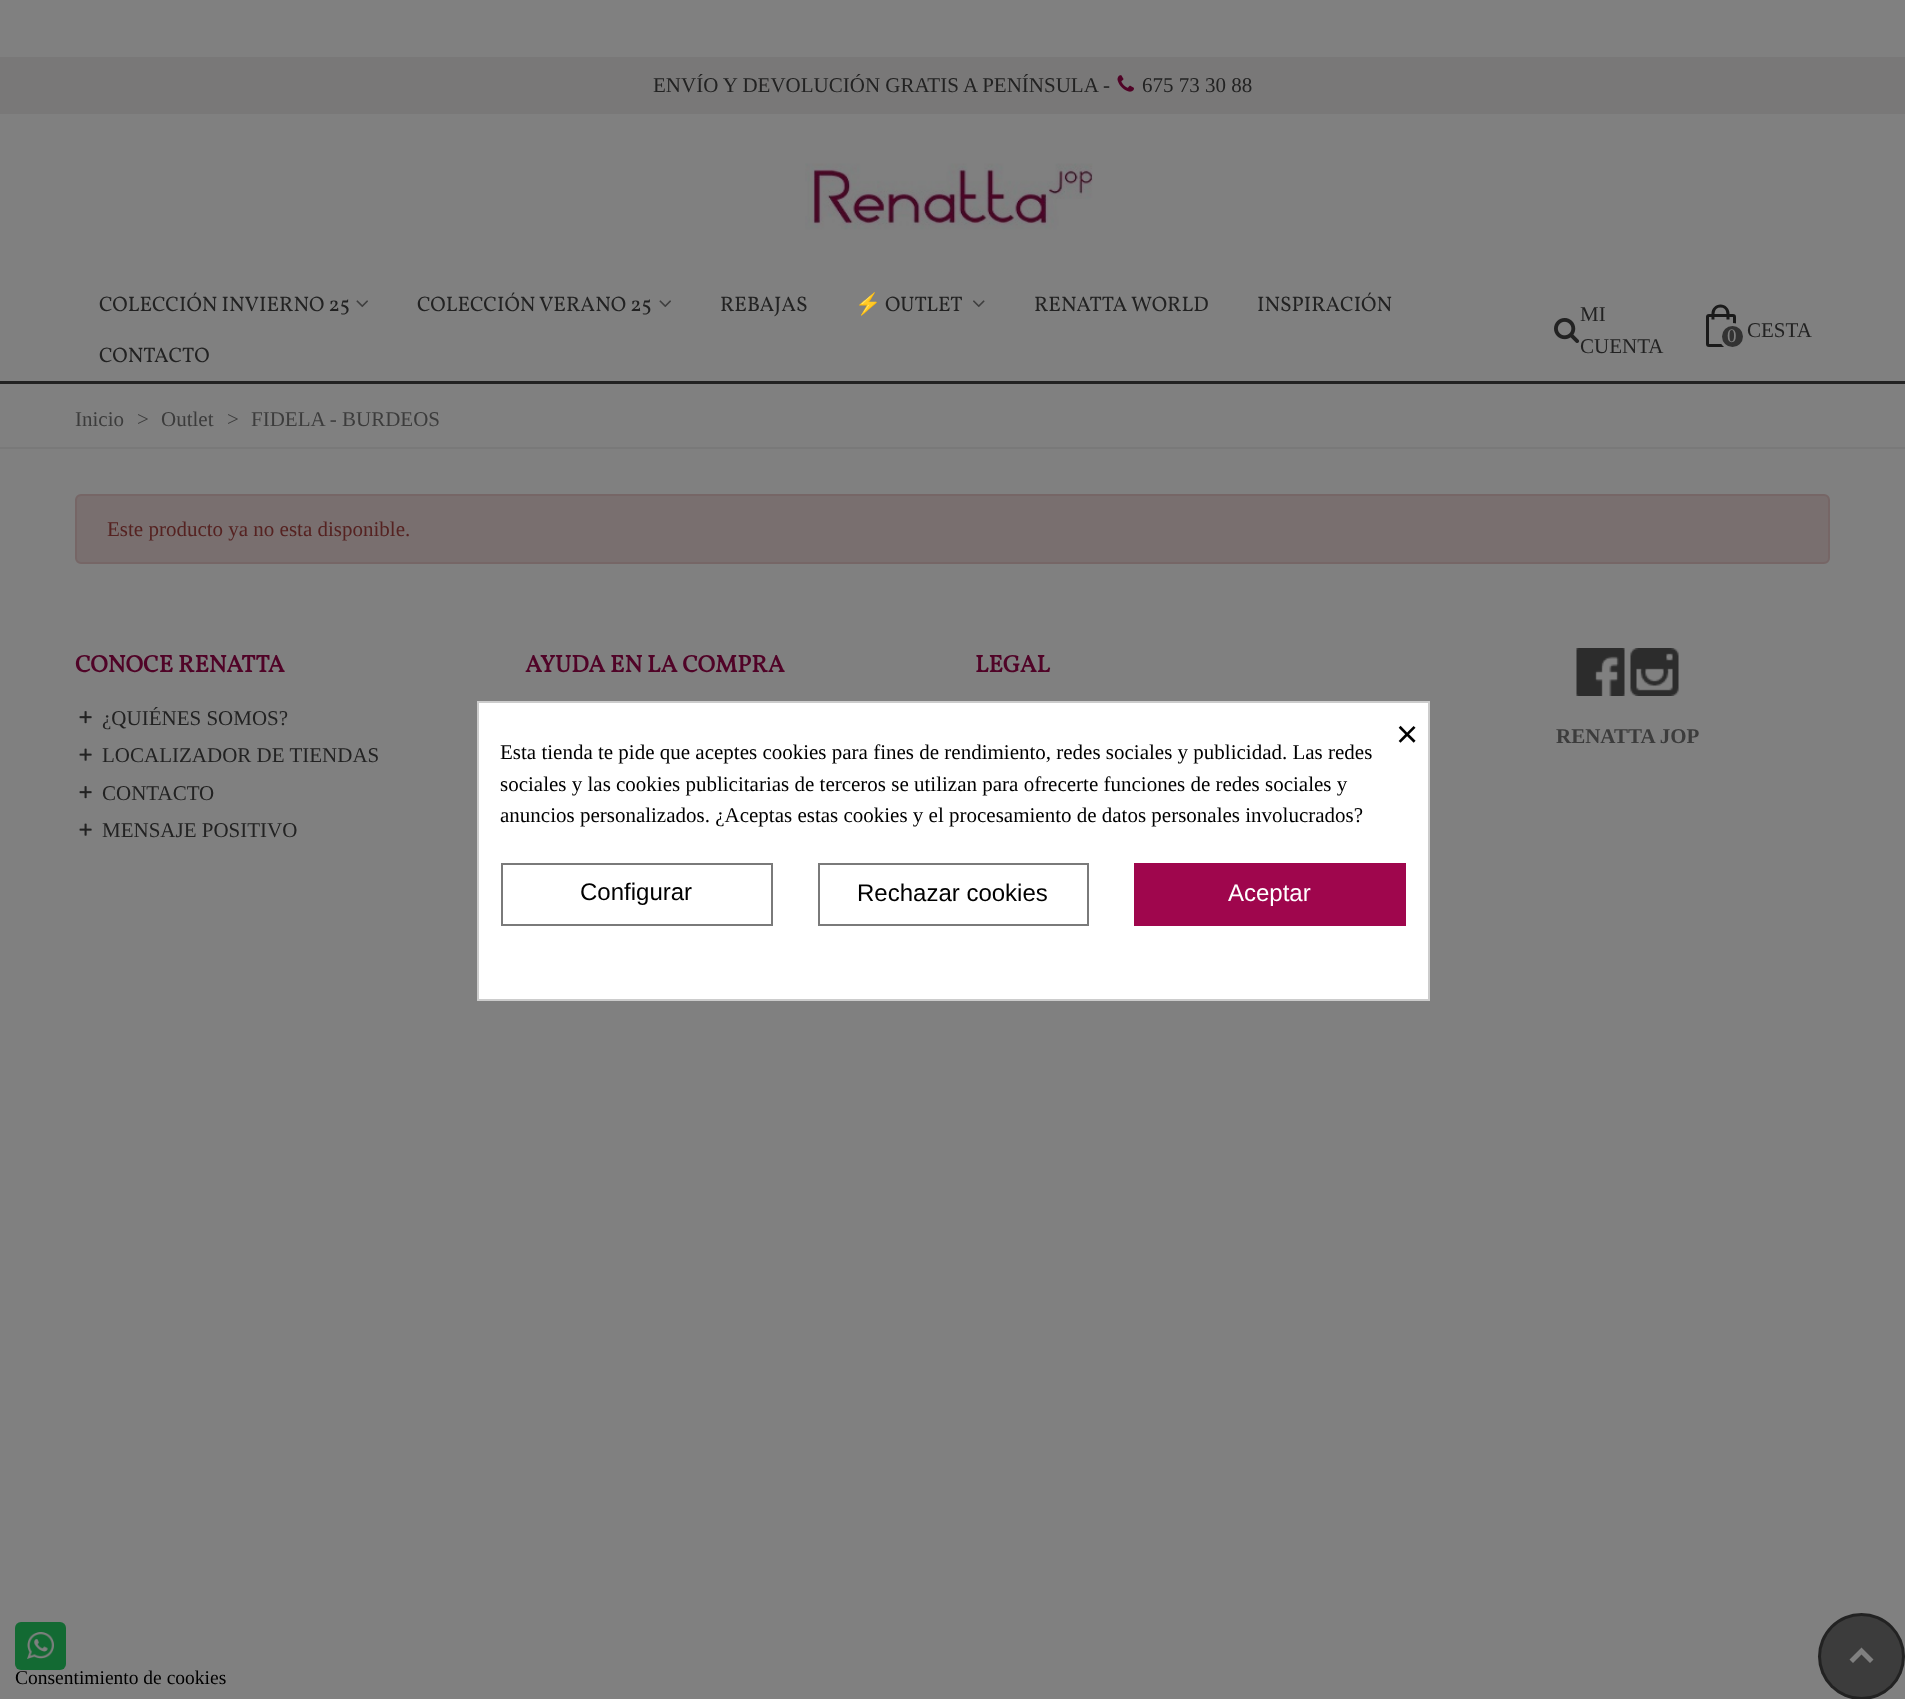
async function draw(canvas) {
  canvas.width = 1905
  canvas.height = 1699
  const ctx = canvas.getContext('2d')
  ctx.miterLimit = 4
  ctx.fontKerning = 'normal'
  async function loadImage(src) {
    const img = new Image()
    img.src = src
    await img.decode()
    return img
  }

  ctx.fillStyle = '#808080'
  ctx.fillRect(0, 0, 1905, 1699)
  ctx.fillStyle = '#797878'
  ctx.fillRect(0, 57, 1905, 57)
  ctx.font = '21px Liberation Serif'
  ctx.fillStyle = '#222'
  ctx.fillText('ENVÍO Y DEVOLUCIÓN GRATIS A PENÍNSULA -', 653, 92)
  ctx.drawImage(await loadImage('image0.png'), 1117, 75, 17, 17)
  ctx.fillText('675 73 30 88', 1142, 92)
  ctx.drawImage(await loadImage('image1.png'), 805, 163, 288, 67)
  ctx.fillRect(0, 381, 1905, 3)
  ctx.font = '21px Vollkorn'
  ctx.fillText('COLECCIÓN INVIERNO 25', 99, 311)
  ctx.drawImage(await loadImage('image2.png'), 356, 300, 12, 8)
  ctx.fillText('COLECCIÓN VERANO 25', 417, 311)
  ctx.drawImage(await loadImage('image2.png'), 659, 300, 12, 8)
  ctx.fillText('REBAJAS', 720, 311)
  ctx.font = '21px Noto Color Emoji'
  ctx.fillText('⚡', 855, 311)
  ctx.font = '21px Vollkorn'
  ctx.fillText('OUTLET', 885, 311)
  ctx.drawImage(await loadImage('image3.png'), 973, 300, 12, 8)
  ctx.fillText('RENATTA WORLD', 1034, 311)
  ctx.fillText('INSPIRACIÓN', 1257, 311)
  ctx.fillText('CONTACTO', 99, 362)
  ctx.drawImage(await loadImage('image4.png'), 1554, 318, 26, 25)
  ctx.font = '21px Liberation Serif'
  ctx.fillText('MI', 1580, 321)
  ctx.fillText('CUENTA', 1580, 353)
  ctx.beginPath()
  ctx.roundRect(1707.5, 315.5, 27, 30, 1.5)
  ctx.strokeStyle = '#1a1a1a'
  ctx.lineWidth = 3
  ctx.stroke()
  ctx.fillStyle = '#1a1a1a'
  ctx.beginPath()
  ctx.moveTo(1720.5, 304.5)
  ctx.bezierCurveTo(1725.5, 304.5, 1729.5, 308.5, 1729.5, 313.5)
  ctx.lineTo(1729.5, 319.5)
  ctx.lineTo(1711.5, 319.5)
  ctx.lineTo(1711.5, 313.5)
  ctx.bezierCurveTo(1711.5, 308.5, 1715.5, 304.5, 1720.5, 304.5)
  ctx.closePath()
  ctx.moveTo(1720.5, 307.5)
  ctx.bezierCurveTo(1727.5, 307.5, 1726.5, 315, 1726.5, 319.5)
  ctx.lineTo(1714.5, 319.5)
  ctx.bezierCurveTo(1714.5, 315, 1713.5, 307.5, 1720.5, 307.5)
  ctx.closePath()
  ctx.fill('evenodd')
  ctx.fillStyle = '#333'
  ctx.beginPath()
  ctx.arc(1732.5, 336.5, 12, 0, 2 * Math.PI)
  ctx.fill()
  ctx.strokeStyle = '#808080'
  ctx.stroke()
  ctx.font = '19px Liberation Serif'
  ctx.fillStyle = '#808080'
  ctx.fillText('0', 1727, 342)
  ctx.font = '21px Liberation Serif'
  ctx.fillStyle = '#222'
  ctx.fillText('CESTA', 1747, 337)
  ctx.fillStyle = '#797979'
  ctx.fillRect(0, 447, 1905, 2)
  ctx.fillStyle = '#3c3c3c'
  ctx.fillText('Inicio', 75, 426)
  ctx.fillText('>', 137, 426)
  ctx.fillText('Outlet', 161, 426)
  ctx.fillText('>', 227, 426)
  ctx.fillText('FIDELA - BURDEOS', 251, 426)
  ctx.fillStyle = '#796f6f'
  ctx.beginPath()
  ctx.roundRect(76, 495, 1753, 68, 5)
  ctx.fill()
  ctx.strokeStyle = '#766666'
  ctx.lineWidth = 2
  ctx.stroke()
  ctx.fillStyle = '#552221'
  ctx.fillText('Este producto ya no esta disponible.', 107, 536)
  ctx.font = 'bold 24px Vollkorn'
  ctx.fillStyle = '#500327'
  ctx.fillText('CONOCE RENATTA', 75, 672)
  ctx.drawImage(await loadImage('image5.png'), 79, 711, 13, 13)
  ctx.font = '21px Liberation Serif'
  ctx.fillStyle = '#222'
  ctx.fillText('¿QUIÉNES SOMOS?', 102, 725)
  ctx.drawImage(await loadImage('image6.png'), 79, 748, 13, 13)
  ctx.fillText('LOCALIZADOR DE TIENDAS', 102, 762)
  ctx.drawImage(await loadImage('image5.png'), 79, 786, 13, 13)
  ctx.fillText('CONTACTO', 102, 800)
  ctx.drawImage(await loadImage('image6.png'), 79, 823, 13, 13)
  ctx.fillText('MENSAJE POSITIVO', 102, 837)
  ctx.font = 'bold 24px Vollkorn'
  ctx.fillStyle = '#500327'
  ctx.fillText('AYUDA EN LA COMPRA', 525, 672)
  ctx.fillText('LEGAL', 975, 672)
  ctx.drawImage(await loadImage('image7.png'), 1576, 648, 49, 48)
  ctx.drawImage(await loadImage('image8.png'), 1630, 648, 49, 48)
  ctx.font = 'bold 21px Liberation Serif'
  ctx.fillStyle = '#3c3c3c'
  ctx.fillText('RENATTA JOP', 1556, 743)
  ctx.fillStyle = '#222'
  ctx.beginPath()
  ctx.arc(1861.5, 1656.5, 43.5, 0, 2 * Math.PI)
  ctx.fill()
  ctx.fillStyle = '#3c3c3c'
  ctx.beginPath()
  ctx.arc(1861.5, 1656.5, 40.5, 0, 2 * Math.PI)
  ctx.fill()
  ctx.fillStyle = '#808080'
  ctx.beginPath()
  ctx.moveTo(1849.5, 1659.5)
  ctx.lineTo(1861.5, 1647.5)
  ctx.lineTo(1873.5, 1659.5)
  ctx.lineTo(1870, 1663)
  ctx.lineTo(1861.5, 1654.5)
  ctx.lineTo(1853, 1663)
  ctx.closePath()
  ctx.fill()
  ctx.fillStyle = '#fff'
  ctx.beginPath()
  ctx.rect(478, 702, 951, 298)
  ctx.fill()
  ctx.strokeStyle = '#ccc'
  ctx.stroke()
  ctx.font = '38px Liberation Sans'
  ctx.fillStyle = '#000'
  ctx.fillText('×', 1396, 747)
  ctx.font = '21px Liberation Serif'
  ctx.fillText('Esta tienda te pide que aceptes cookies para fines de rendimiento, redes sociales y publicidad. Las redes', 500, 759)
  ctx.fillText('sociales y las cookies publicitarias de terceros se utilizan para ofrecerte funciones de redes sociales y', 500, 791)
  ctx.fillText('anuncios personalizados. ¿Aceptas estas cookies y el procesamiento de datos personales involucrados?', 500, 822)
  ctx.strokeStyle = '#7a7a7a'
  ctx.strokeRect(502, 864, 270, 61)
  ctx.font = '24px Liberation Sans'
  ctx.fillText('Configurar', 580, 900)
  ctx.strokeRect(819, 864, 269, 61)
  ctx.fillText('Rechazar cookies', 857, 901)
  ctx.fillStyle = '#9f064d'
  ctx.fillRect(1134, 863, 272, 63)
  ctx.fillStyle = '#fff'
  ctx.fillText('Aceptar', 1228, 901)
  ctx.fillStyle = '#136a33'
  ctx.beginPath()
  ctx.roundRect(15, 1622, 51, 48, 6)
  ctx.fill()
  ctx.drawImage(await loadImage('image9.png'), 27, 1632, 27, 27)
  ctx.font = '19.5px Liberation Serif'
  ctx.fillStyle = '#000'
  ctx.fillText('Consentimiento de cookies', 15, 1684)
}

draw(document.querySelector('canvas'))
